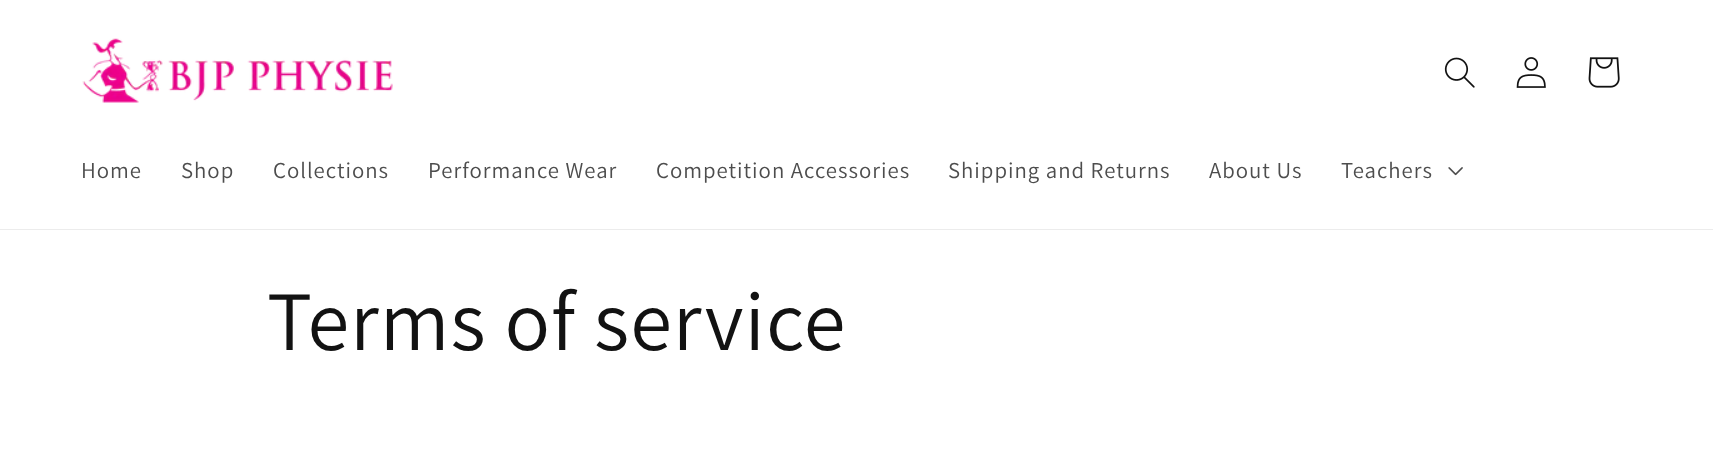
async function draw(canvas) {
  canvas.width = 1713
  canvas.height = 450
  const ctx = canvas.getContext('2d')
  ctx.miterLimit = 4
  ctx.fontKerning = 'normal'
  async function loadImage(src) {
    const img = new Image()
    img.src = src
    await img.decode()
    return img
  }

  ctx.fillStyle = '#fff'
  ctx.fillRect(0, 0, 1713, 450)
  ctx.fillStyle = '#ececec'
  ctx.fillRect(0, 229, 1713, 1)
  ctx.drawImage(await loadImage('image0.png'), 82, 38, 311, 65)
  ctx.drawImage(await loadImage('image1.png'), 1444, 57, 31, 31)
  ctx.drawImage(await loadImage('image2.png'), 1516, 57, 30, 31)
  ctx.drawImage(await loadImage('image3.png'), 1588, 57, 32, 31)
  ctx.letterSpacing = '1px'
  ctx.font = '22.75px Assistant'
  ctx.fillStyle = '#4d4d4d'
  ctx.fillText('Home', 81, 178)
  ctx.fillText('Shop', 181, 178)
  ctx.fillText('Collections', 273, 178)
  ctx.fillText('Performance Wear', 428, 178)
  ctx.fillText('Competition Accessories', 656, 178)
  ctx.fillText('Shipping and Returns', 948, 178)
  ctx.fillText('About Us', 1209, 178)
  ctx.fillText('Teachers', 1341, 178)
  ctx.drawImage(await loadImage('image4.png'), 1448, 167, 15, 9)
  ctx.font = '84.5px Assistant'
  ctx.fillStyle = '#121212'
  ctx.fillText('Terms of service', 267, 350)
}

draw(document.querySelector('canvas'))
